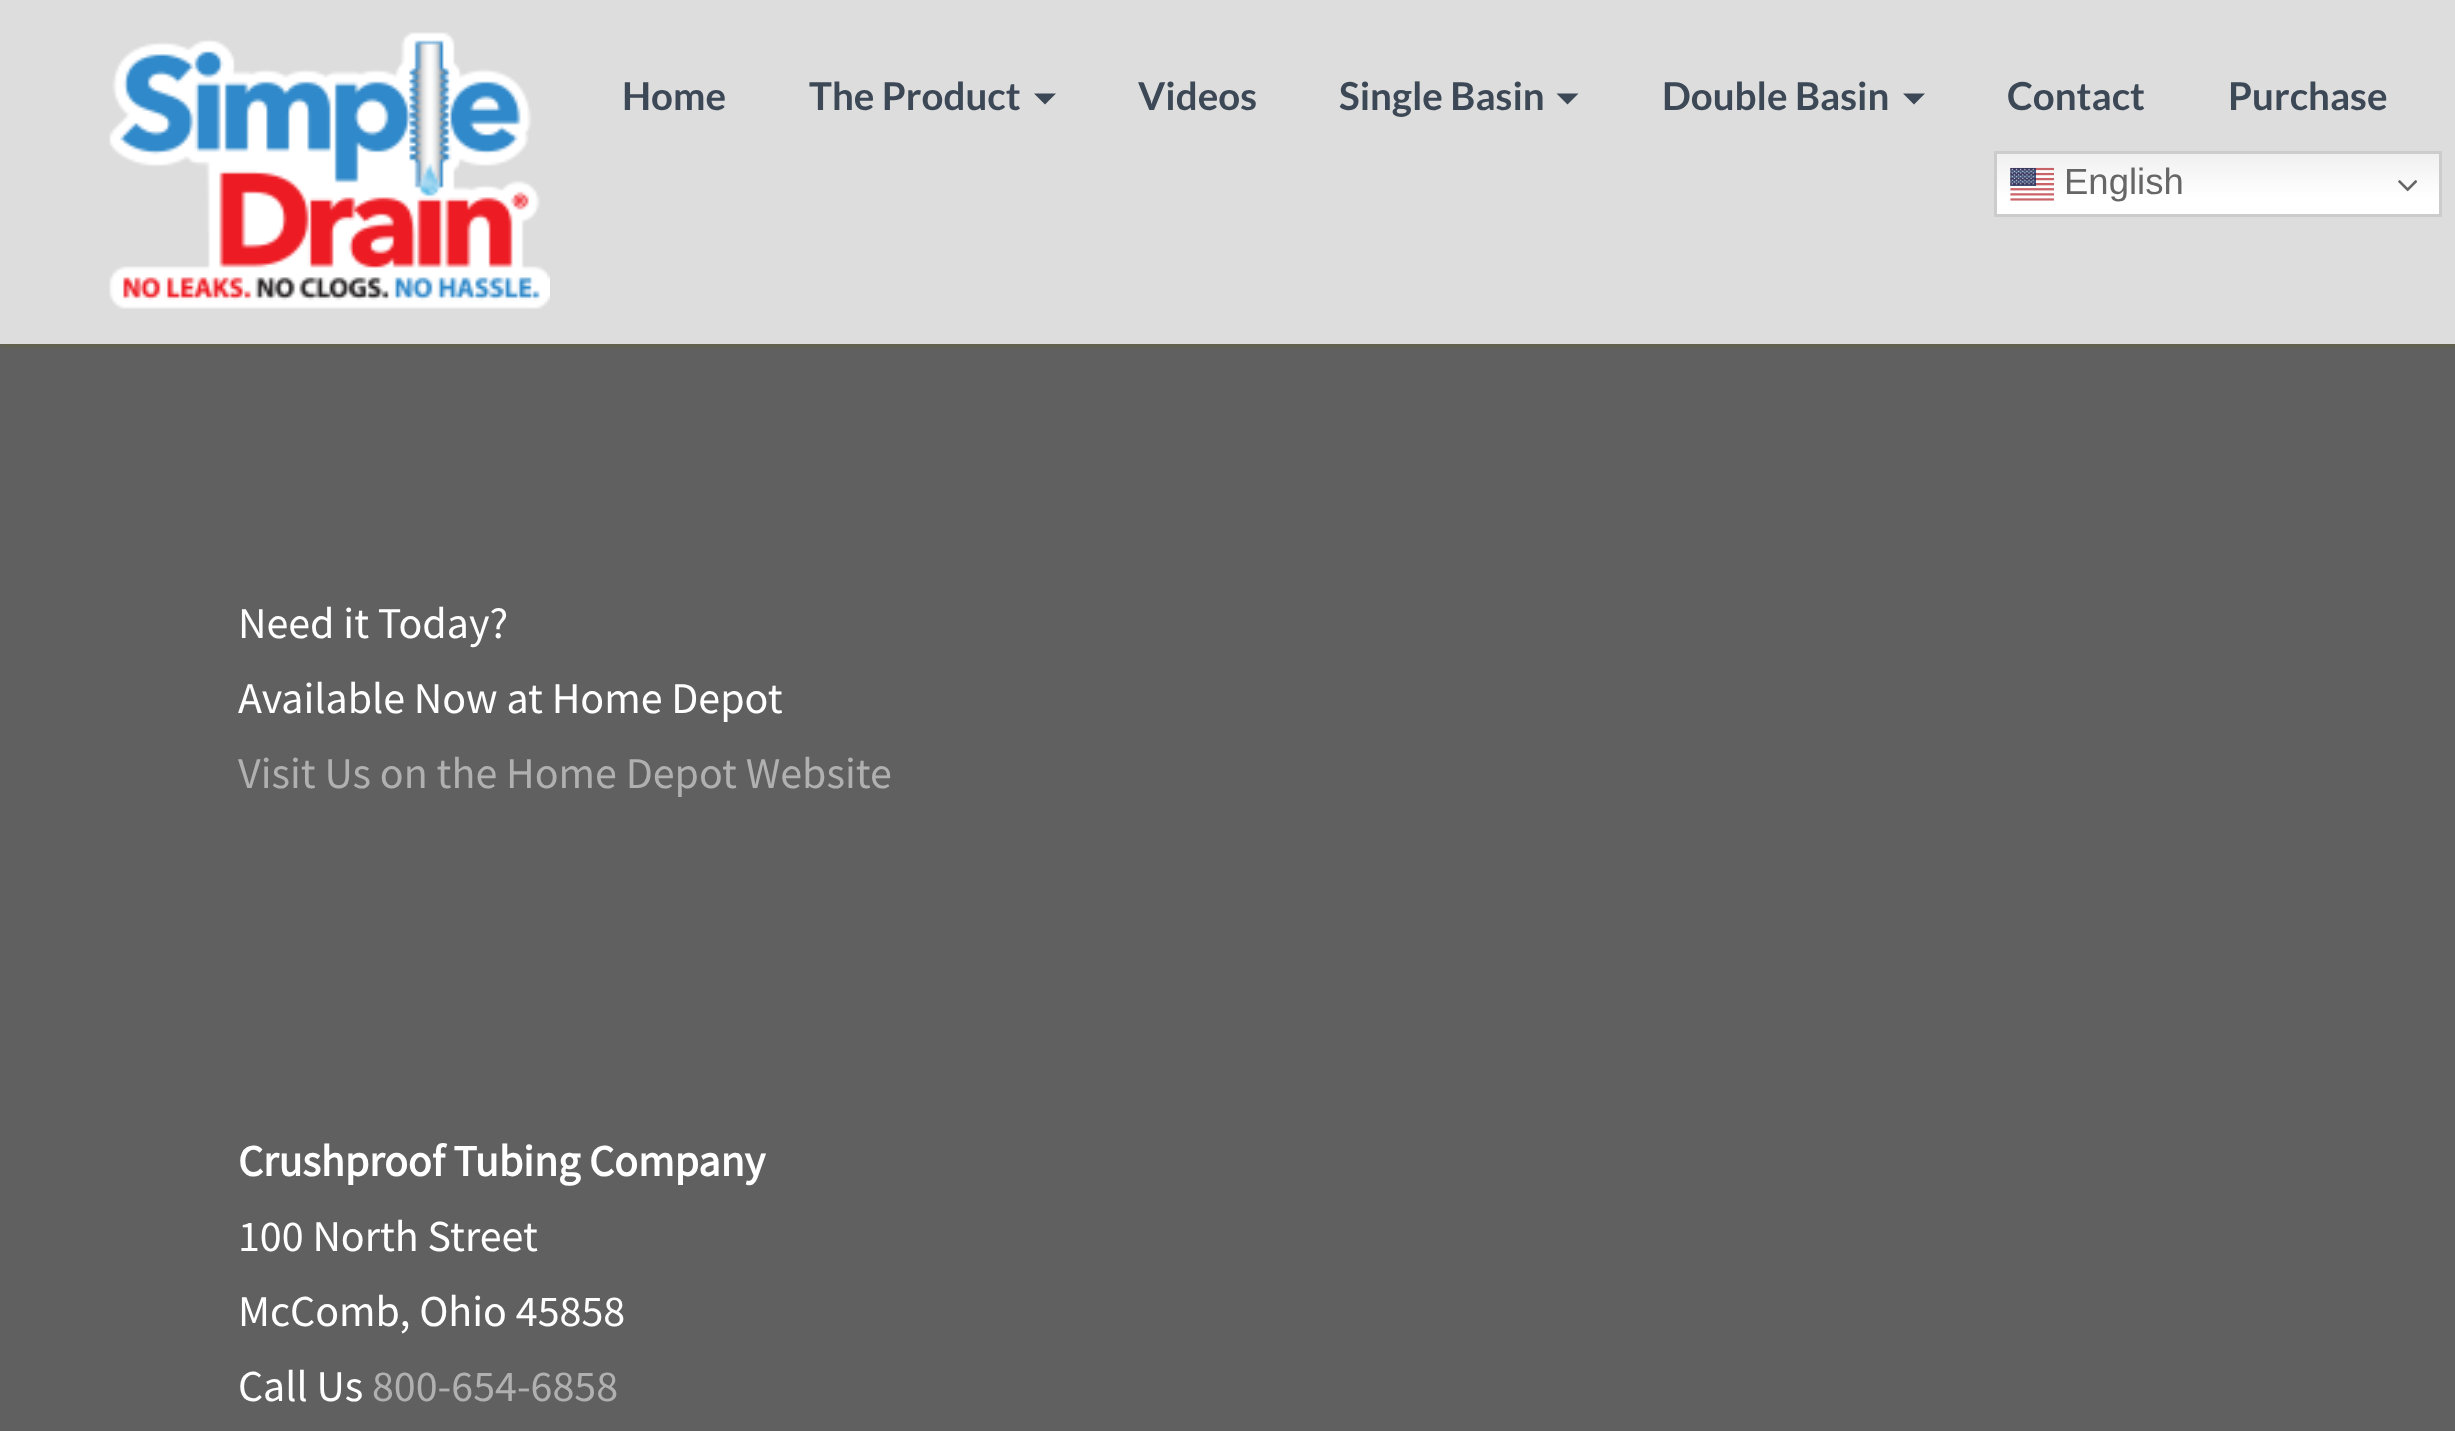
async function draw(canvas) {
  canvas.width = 2455
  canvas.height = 1431
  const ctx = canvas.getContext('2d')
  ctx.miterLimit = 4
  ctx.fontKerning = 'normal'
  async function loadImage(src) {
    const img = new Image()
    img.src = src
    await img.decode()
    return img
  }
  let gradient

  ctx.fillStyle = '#606060'
  ctx.fillRect(0, 0, 2455, 1431)
  ctx.fillStyle = '#64640033'
  ctx.filter = 'blur(1.5px)'
  ctx.beginPath()
  ctx.rect(0, 3, 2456, 344)
  ctx.fill()
  ctx.filter = 'none'
  ctx.fillStyle = '#ddd'
  ctx.fillRect(0, 0, 2455, 344)
  ctx.drawImage(await loadImage('image0.png'), 109, 32, 441, 277)
  ctx.font = 'bold 38.5px Lato'
  ctx.fillStyle = '#3c4856'
  ctx.fillText('Home', 622, 110)
  ctx.fillText('The Product', 809, 110)
  ctx.beginPath()
  ctx.moveTo(1034, 93.5)
  ctx.lineTo(1056, 93.5)
  ctx.lineTo(1045, 104.5)
  ctx.closePath()
  ctx.fill()
  ctx.fillText('Videos', 1138, 110)
  ctx.fillText('Single Basin', 1339, 110)
  ctx.beginPath()
  ctx.moveTo(1556.5, 93.5)
  ctx.lineTo(1578.5, 93.5)
  ctx.lineTo(1567.5, 104.5)
  ctx.closePath()
  ctx.fill()
  ctx.fillText('Double Basin', 1662, 110)
  ctx.beginPath()
  ctx.moveTo(1903, 93.5)
  ctx.lineTo(1925, 93.5)
  ctx.lineTo(1914, 104.5)
  ctx.closePath()
  ctx.fill()
  ctx.fillText('Contact', 2007, 110)
  ctx.fillText('Purchase', 2228, 110)
  gradient = ctx.createLinearGradient(2218, 151, 2218, 217)
  gradient.addColorStop(0, '#efefef')
  gradient.addColorStop(0.7, '#fff')
  ctx.fillStyle = gradient
  ctx.fillRect(1997, 154, 442, 60)
  ctx.strokeStyle = '#ccc'
  ctx.lineWidth = 3
  ctx.strokeRect(1995.5, 152.5, 445, 63)
  ctx.drawImage(await loadImage('image1.png'), 2010, 167, 44, 34)
  ctx.font = '36.5px Liberation Sans'
  ctx.fillStyle = '#666'
  ctx.fillText('English', 2064, 194)
  ctx.drawImage(await loadImage('image2.png'), 2398, 180, 19, 12)
  ctx.font = '44px Source Sans Pro'
  ctx.fillStyle = '#fff'
  ctx.fillText('Need it Today?', 238, 638)
  ctx.fillText('Available Now at Home Depot', 238, 713)
  ctx.fillStyle = '#b0b0b0'
  ctx.fillText('Visit Us on the Home Depot Website', 238, 788)
  ctx.font = 'bold 44px Source Sans Pro'
  ctx.fillStyle = '#fff'
  ctx.fillText('Crushproof Tubing Company', 238, 1176)
  ctx.font = '44px Source Sans Pro'
  ctx.fillText('100 North Street', 238, 1251)
  ctx.fillText('McComb, Ohio 45858', 238, 1326)
  ctx.fillText('Call Us', 238, 1401)
  ctx.fillStyle = '#b0b0b0'
  ctx.fillText('800-654-6858', 372, 1401)
}

draw(document.querySelector('canvas'))
